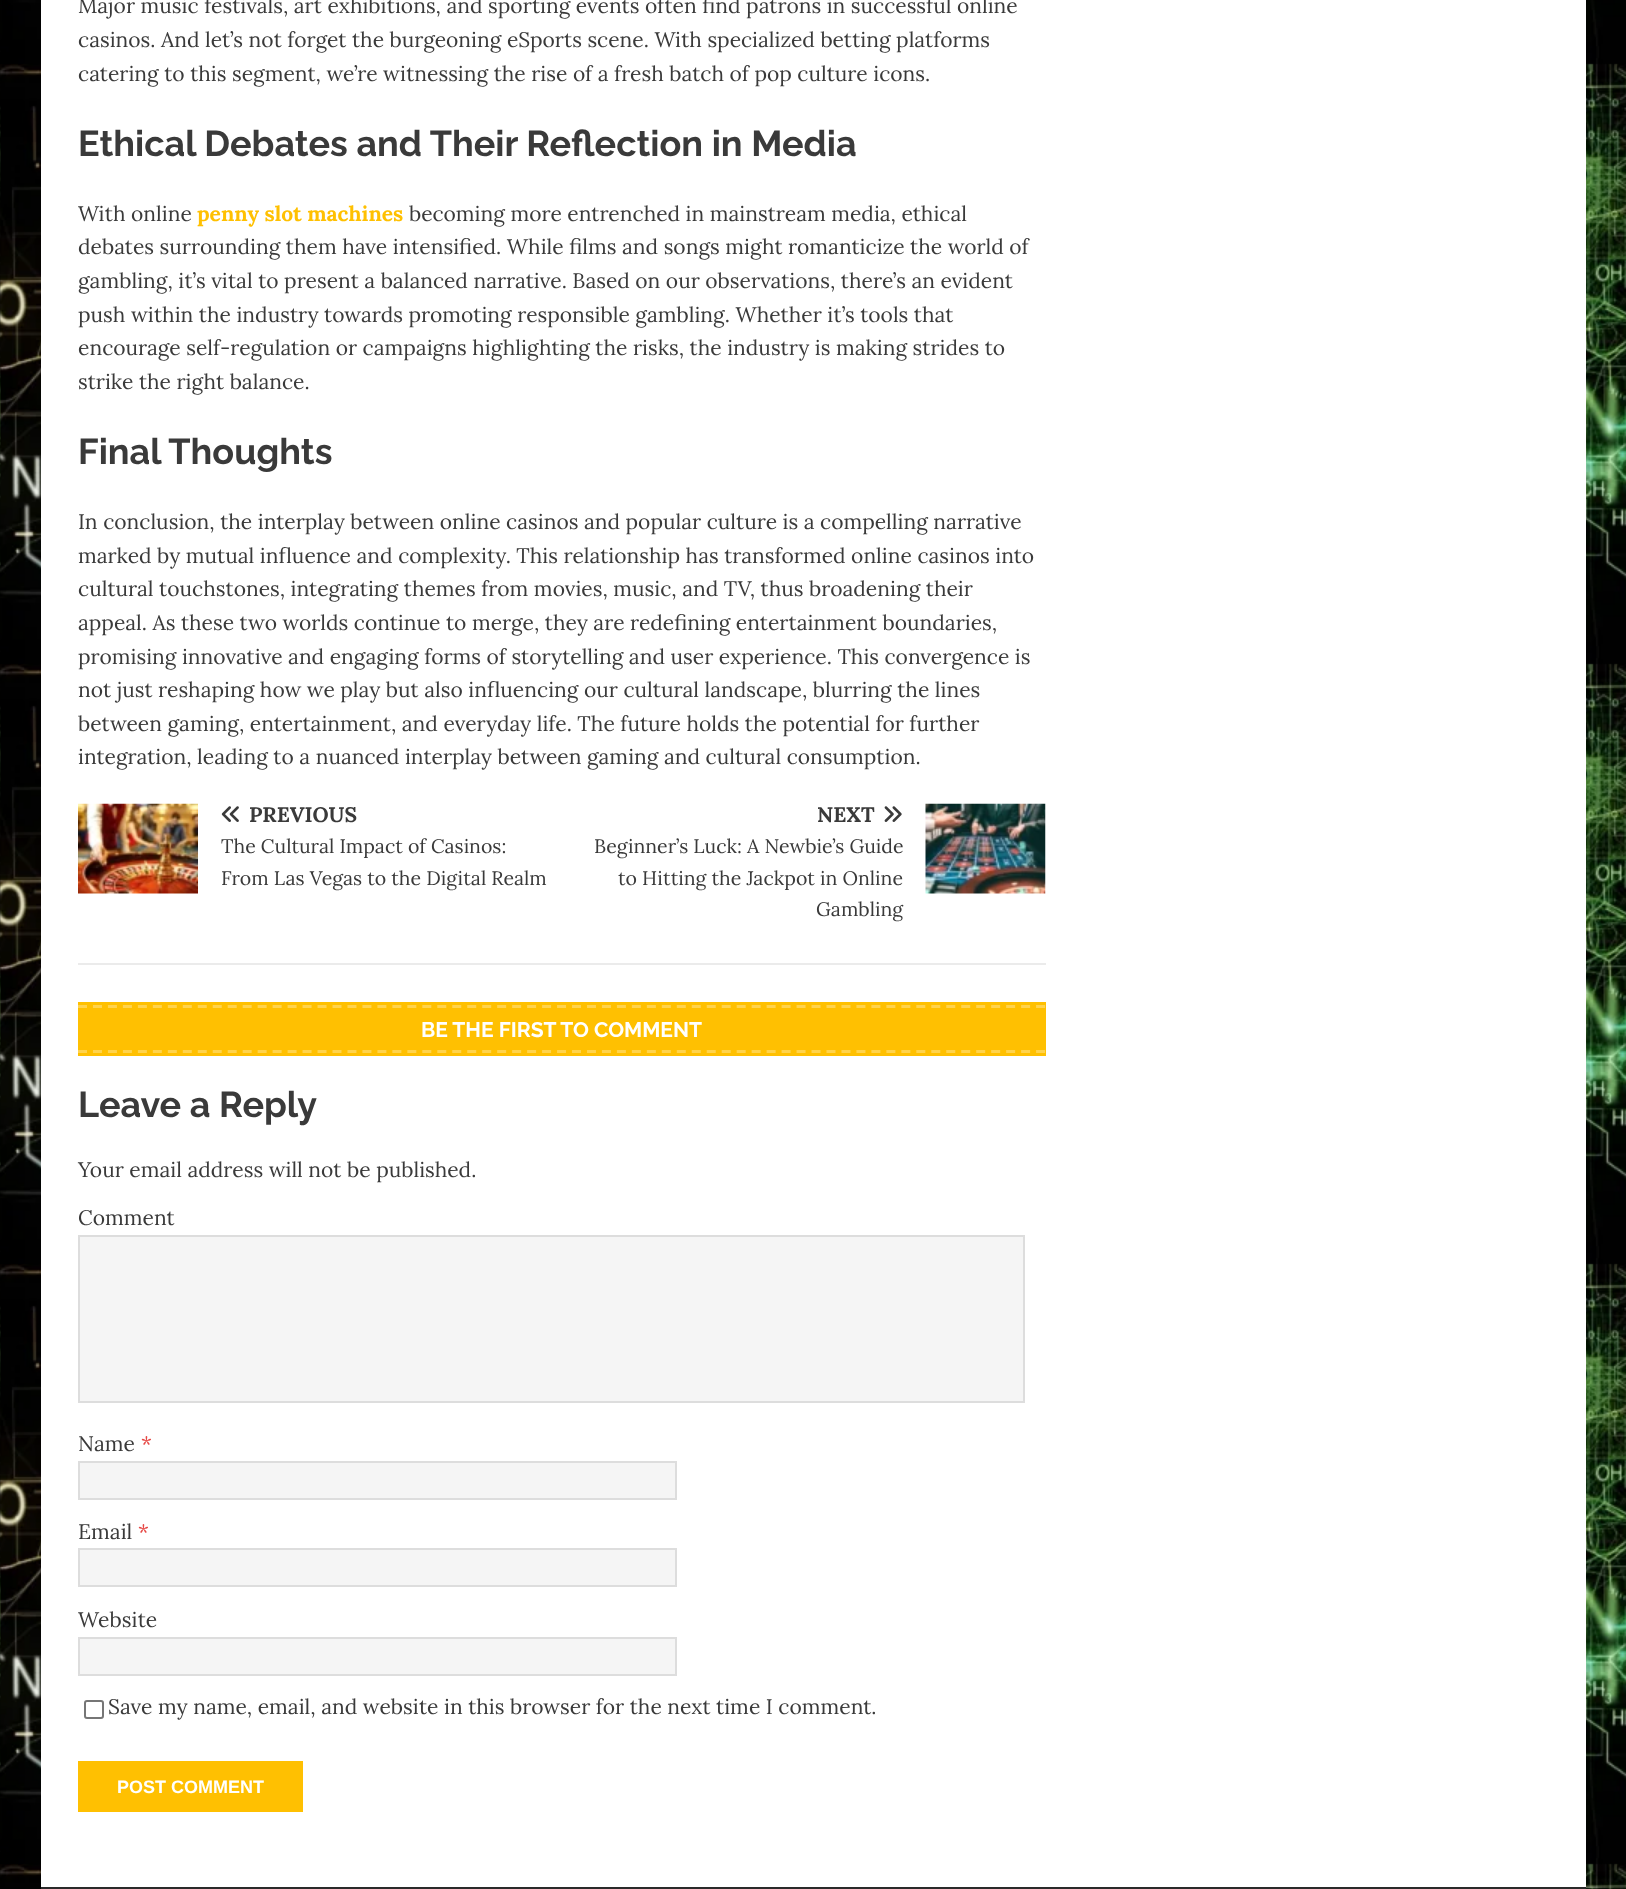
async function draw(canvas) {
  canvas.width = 1626
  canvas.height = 1889
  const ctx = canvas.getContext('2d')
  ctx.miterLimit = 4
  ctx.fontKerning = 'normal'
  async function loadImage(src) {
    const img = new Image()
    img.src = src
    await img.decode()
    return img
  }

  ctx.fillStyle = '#fff'
  ctx.fillRect(0, 0, 1626, 1889)
  ctx.drawImage(await loadImage('image0.png'), 0, 0, 1626, 1889)
  ctx.fillRect(41, 0, 1545, 1887)
  ctx.font = '21px Lora'
  ctx.fillStyle = '#3a3a3a'
  ctx.fillText('Major music festivals, art exhibitions, and sporting events often find patrons in successful online', 78, 13)
  ctx.fillText('casinos. And let’s not forget the burgeoning eSports scene. With specialized betting platforms', 78, 47)
  ctx.fillText('catering to this segment, we’re witnessing the rise of a fresh batch of pop culture icons.', 78, 81)
  ctx.font = 'bold 36px Raleway'
  ctx.fillText('Ethical Debates and Their Reflection in Media', 78, 156)
  ctx.font = '21px Lora'
  ctx.fillText('With online', 78, 221)
  ctx.font = 'bold 21px Lora'
  ctx.fillStyle = '#ffc001'
  ctx.fillText('penny slot machines', 197, 221)
  ctx.font = '21px Lora'
  ctx.fillStyle = '#3a3a3a'
  ctx.fillText('becoming more entrenched in mainstream media, ethical', 409, 221)
  ctx.fillText('debates surrounding them have intensified. While films and songs might romanticize the world of', 78, 254)
  ctx.fillText('gambling, it’s vital to present a balanced narrative. Based on our observations, there’s an evident', 78, 288)
  ctx.fillText('push within the industry towards promoting responsible gambling. Whether it’s tools that', 78, 322)
  ctx.fillText('encourage self-regulation or campaigns highlighting the risks, the industry is making strides to', 78, 355)
  ctx.fillText('strike the right balance.', 78, 389)
  ctx.font = 'bold 36px Raleway'
  ctx.fillText('Final Thoughts', 78, 464)
  ctx.font = '21px Lora'
  ctx.fillText('In conclusion, the interplay between online casinos and popular culture is a compelling narrative', 78, 529)
  ctx.fillText('marked by mutual influence and complexity. This relationship has transformed online casinos into', 78, 563)
  ctx.fillText('cultural touchstones, integrating themes from movies, music, and TV, thus broadening their', 78, 596)
  ctx.fillText('appeal. As these two worlds continue to merge, they are redefining entertainment boundaries,', 78, 630)
  ctx.fillText('promising innovative and engaging forms of storytelling and user experience. This convergence is', 78, 664)
  ctx.fillText('not just reshaping how we play but also influencing our cultural landscape, blurring the lines', 78, 697)
  ctx.fillText('between gaming, entertainment, and everyday life. The future holds the potential for further', 78, 731)
  ctx.fillText('integration, leading to a nuanced interplay between gaming and cultural consumption.', 78, 764)
  ctx.fillStyle = '#ebebeb'
  ctx.fillRect(78, 963, 968, 2)
  ctx.drawImage(await loadImage('image1.png'), 78, 803, 120, 91)
  ctx.drawImage(await loadImage('image2.png'), 221, 806, 18, 16)
  ctx.font = 'bold 21px Lora'
  ctx.fillStyle = '#3a3a3a'
  ctx.fillText('PREVIOUS', 249, 822)
  ctx.font = '19.5px Lora'
  ctx.fillText('The Cultural Impact of Casinos:', 221, 853)
  ctx.fillText('From Las Vegas to the Digital Realm', 221, 885)
  ctx.font = 'bold 21px Lora'
  ctx.fillText('NEXT', 817, 822)
  ctx.drawImage(await loadImage('image3.png'), 884, 806, 18, 16)
  ctx.drawImage(await loadImage('image4.png'), 925, 803, 121, 91)
  ctx.font = '19.5px Lora'
  ctx.fillText('Beginner’s Luck: A Newbie’s Guide', 594, 853)
  ctx.fillText('to Hitting the Jackpot in Online', 618, 885)
  ctx.fillText('Gambling', 816, 916)
  ctx.fillStyle = '#ffc001'
  ctx.fillRect(78, 1002, 968, 54)
  ctx.beginPath()
  ctx.moveTo(78, 1006.5)
  ctx.lineTo(1045.5, 1006.5)
  ctx.strokeStyle = '#ffd34d'
  ctx.lineWidth = 3
  ctx.setLineDash([9, 5.97])
  ctx.stroke()
  ctx.beginPath()
  ctx.moveTo(78, 1051.5)
  ctx.lineTo(1045.5, 1051.5)
  ctx.stroke()
  ctx.font = 'bold 21px Raleway'
  ctx.fillStyle = '#fff'
  ctx.fillText('BE THE FIRST TO COMMENT', 421, 1037)
  ctx.font = 'bold 36px Raleway'
  ctx.fillStyle = '#3a3a3a'
  ctx.fillText('Leave a Reply', 78, 1117)
  ctx.font = '21px Lora'
  ctx.fillText('Your email address will not be published.', 78, 1177)
  ctx.fillText('Comment', 78, 1225)
  ctx.fillStyle = '#f5f5f5'
  ctx.beginPath()
  ctx.rect(79, 1236, 945, 166)
  ctx.fill()
  ctx.strokeStyle = '#ddd'
  ctx.lineWidth = 2
  ctx.setLineDash([])
  ctx.stroke()
  ctx.fillStyle = '#3a3a3a'
  ctx.fillText('Name', 78, 1451)
  ctx.fillStyle = '#e64946'
  ctx.fillText('*', 141, 1451)
  ctx.fillStyle = '#f5f5f5'
  ctx.beginPath()
  ctx.rect(79, 1462, 597, 37)
  ctx.fill()
  ctx.stroke()
  ctx.fillStyle = '#3a3a3a'
  ctx.fillText('Email', 78, 1539)
  ctx.fillStyle = '#e64946'
  ctx.fillText('*', 138, 1539)
  ctx.fillStyle = '#f5f5f5'
  ctx.beginPath()
  ctx.rect(79, 1549, 597, 37)
  ctx.fill()
  ctx.stroke()
  ctx.fillStyle = '#3a3a3a'
  ctx.fillText('Website', 78, 1627)
  ctx.fillStyle = '#f5f5f5'
  ctx.beginPath()
  ctx.rect(79, 1638, 597, 37)
  ctx.fill()
  ctx.stroke()
  ctx.beginPath()
  ctx.roundRect(85, 1701, 18, 17, 2)
  ctx.strokeStyle = '#767676'
  ctx.stroke()
  ctx.fillStyle = '#3a3a3a'
  ctx.fillText('Save my name, email, and website in this browser for the next time I comment.', 108, 1714)
  ctx.fillStyle = '#ffc001'
  ctx.fillRect(78, 1761, 225, 51)
  ctx.font = 'bold 18px Liberation Sans'
  ctx.fillStyle = '#fff'
  ctx.fillText('POST COMMENT', 117, 1793)
  ctx.fillStyle = '#2a2a2a'
  ctx.fillRect(41, 1887, 1545, 2)
}

draw(document.querySelector('canvas'))
